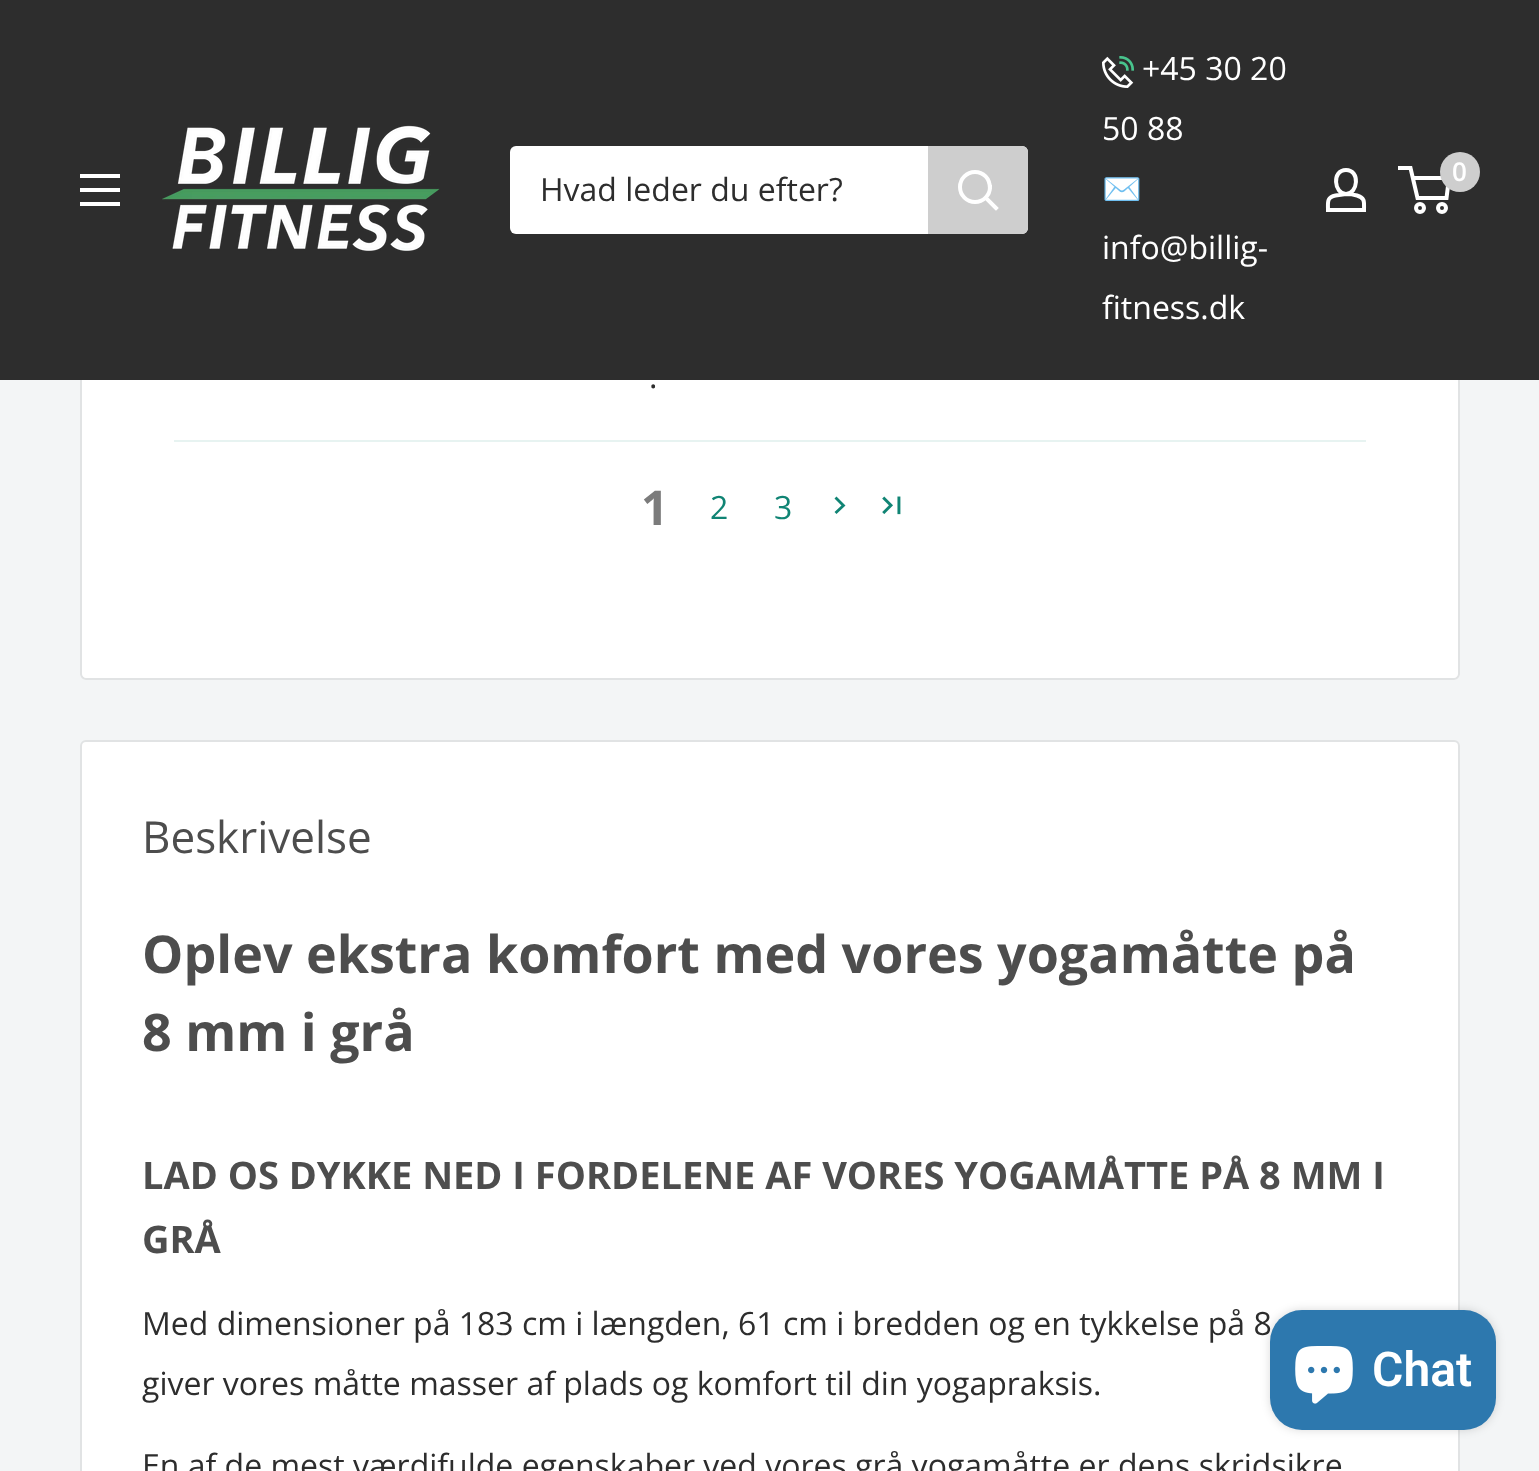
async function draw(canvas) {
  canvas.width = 1539
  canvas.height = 1471
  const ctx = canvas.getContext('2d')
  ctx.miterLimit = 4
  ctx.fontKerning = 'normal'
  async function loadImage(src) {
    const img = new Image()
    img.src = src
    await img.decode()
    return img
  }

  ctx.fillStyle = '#f3f5f6'
  ctx.fillRect(0, 0, 1539, 1471)
  ctx.fillStyle = '#fff'
  ctx.beginPath()
  ctx.roundRect(80, -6, 1380, 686, 6)
  ctx.fill()
  ctx.fillStyle = '#e1e3e4'
  ctx.beginPath()
  ctx.moveTo(86, -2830)
  ctx.lineTo(1454, -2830)
  ctx.bezierCurveTo(1457, -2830, 1460, -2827, 1460, -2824)
  ctx.lineTo(1460, 674)
  ctx.bezierCurveTo(1460, 677, 1457, 680, 1454, 680)
  ctx.lineTo(86, 680)
  ctx.bezierCurveTo(83, 680, 80, 677, 80, 674)
  ctx.lineTo(80, -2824)
  ctx.bezierCurveTo(80, -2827, 83, -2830, 86, -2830)
  ctx.closePath()
  ctx.moveTo(86, -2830)
  ctx.lineTo(1454, -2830)
  ctx.bezierCurveTo(1456, -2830, 1458, -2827, 1458, -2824)
  ctx.lineTo(1458, 674)
  ctx.bezierCurveTo(1458, 676, 1456, 678, 1454, 678)
  ctx.lineTo(86, 678)
  ctx.bezierCurveTo(84, 678, 82, 676, 82, 674)
  ctx.lineTo(82, -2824)
  ctx.bezierCurveTo(82, -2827, 84, -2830, 86, -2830)
  ctx.closePath()
  ctx.fill('evenodd')
  ctx.fillStyle = '#2d2d2d'
  ctx.fillRect(0, 0, 1539, 380)
  ctx.fillStyle = '#fff'
  ctx.beginPath()
  ctx.moveTo(80, 202)
  ctx.lineTo(120, 202)
  ctx.lineTo(120, 206)
  ctx.lineTo(80, 206)
  ctx.closePath()
  ctx.moveTo(80, 174)
  ctx.lineTo(120, 174)
  ctx.lineTo(120, 178)
  ctx.lineTo(80, 178)
  ctx.closePath()
  ctx.moveTo(80, 188)
  ctx.lineTo(120, 188)
  ctx.lineTo(120, 192)
  ctx.lineTo(80, 192)
  ctx.closePath()
  ctx.fill('evenodd')
  ctx.drawImage(await loadImage('image0.png'), 162, 125, 278, 126)
  ctx.beginPath()
  ctx.roundRect(510, 146, 518, 88, 6)
  ctx.fill()
  ctx.font = '32px Open Sans'
  ctx.fillStyle = '#2d2d2d'
  ctx.fillText('Hvad leder du efter?', 540, 201)
  ctx.fillStyle = '#cecece'
  ctx.beginPath()
  ctx.roundRect(928, 146, 100, 88, [0, 6, 6, 0])
  ctx.fill()
  ctx.beginPath()
  ctx.moveTo(996, 208)
  ctx.lineTo(986, 198)
  ctx.strokeStyle = '#fff'
  ctx.lineWidth = 4
  ctx.lineCap = 'square'
  ctx.stroke()
  ctx.beginPath()
  ctx.arc(975, 187, 15, 0, 2 * Math.PI)
  ctx.stroke()
  ctx.drawImage(await loadImage('image1.png'), 1102, 56, 32, 32)
  ctx.fillStyle = '#fff'
  ctx.fillText('+45 30 20', 1142, 80)
  ctx.fillText('50 88', 1102, 140)
  ctx.font = '32px Noto Color Emoji'
  ctx.fillText('✉️', 1102, 200)
  ctx.font = '32px Open Sans'
  ctx.fillText('info@billig-', 1102, 259)
  ctx.fillText('fitness.dk', 1102, 319)
  ctx.beginPath()
  ctx.moveTo(1346, 194)
  ctx.bezierCurveTo(1350, 194, 1353.5, 194.5, 1357, 195.5)
  ctx.bezierCurveTo(1365.5, 198, 1364, 202.5, 1364, 210)
  ctx.lineTo(1328, 210)
  ctx.bezierCurveTo(1328, 202, 1326.5, 197.5, 1335.5, 195.5)
  ctx.closePath()
  ctx.moveTo(1346, 194)
  ctx.bezierCurveTo(1334, 194, 1331.5, 170, 1346, 170)
  ctx.bezierCurveTo(1360.5, 170, 1358, 194, 1346, 194)
  ctx.closePath()
  ctx.lineCap = 'butt'
  ctx.stroke()
  ctx.beginPath()
  ctx.arc(1420, 208, 4, 0, 2 * Math.PI)
  ctx.stroke()
  ctx.beginPath()
  ctx.arc(1442, 208, 4, 0, 2 * Math.PI)
  ctx.stroke()
  ctx.beginPath()
  ctx.moveTo(1412.5, 178)
  ctx.lineTo(1449, 178)
  ctx.lineTo(1446.5, 198)
  ctx.lineTo(1417.5, 198)
  ctx.lineTo(1410.5, 168)
  ctx.lineTo(1398, 168)
  ctx.stroke()
  ctx.fillStyle = '#cecece'
  ctx.beginPath()
  ctx.arc(1460, 172, 20, 0, 2 * Math.PI)
  ctx.fill()
  ctx.font = '600 26px Open Sans'
  ctx.fillStyle = '#fff'
  ctx.fillText('0', 1452, 181)
  ctx.font = '32px Open Sans'
  ctx.fillStyle = '#2d2d2d'
  ctx.fillText('.', 649, 388)
  ctx.fillStyle = '#e7f3f1'
  ctx.fillRect(174, 440, 1192, 2)
  ctx.font = 'bold 48px Open Sans'
  ctx.fillStyle = '#7b7b7b'
  ctx.fillText('1', 641, 525)
  ctx.font = '32px Open Sans'
  ctx.fillStyle = '#108474'
  ctx.fillText('2', 710, 519)
  ctx.fillText('3', 774, 519)
  ctx.beginPath()
  ctx.moveTo(836.5, 496.5)
  ctx.lineTo(845.5, 505.5)
  ctx.lineTo(836.5, 514)
  ctx.lineTo(834.5, 512)
  ctx.lineTo(841.5, 505.5)
  ctx.lineTo(834.5, 498.5)
  ctx.closePath()
  ctx.fill()
  ctx.drawImage(await loadImage('image2.png'), 882, 496, 19, 19)
  ctx.fillStyle = '#fff'
  ctx.beginPath()
  ctx.roundRect(81, 741, 1378, 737, 5)
  ctx.fill()
  ctx.strokeStyle = '#e1e3e4'
  ctx.lineWidth = 2
  ctx.stroke()
  ctx.font = '44px Open Sans'
  ctx.fillStyle = '#4d4d4d'
  ctx.fillText('Beskrivelse', 142, 853)
  ctx.font = 'bold 52px Open Sans'
  ctx.fillText('Oplev ekstra komfort med vores yogamåtte på', 142, 973)
  ctx.fillText('8 mm i grå', 142, 1051)
  ctx.font = 'bold 38px Open Sans'
  ctx.fillText('LAD OS DYKKE NED I FORDELENE AF VORES YOGAMÅTTE PÅ 8 MM I', 142, 1189)
  ctx.fillText('GRÅ', 142, 1253)
  ctx.font = '32px Open Sans'
  ctx.fillStyle = '#2d2d2d'
  ctx.fillText('Med dimensioner på 183 cm i længden, 61 cm i bredden og en tykkelse på 8', 142, 1335)
  ctx.fillText('giver vores måtte masser af plads og komfort til din yogapraksis.', 142, 1395)
  ctx.fillText('En af de mest værdifulde egenskaber ved vores grå yogamåtte er dens skridsikre', 142, 1477)
  ctx.fillStyle = '#00000026'
  ctx.filter = 'blur(5px)'
  ctx.beginPath()
  ctx.roundRect(1270, 1310, 226, 120, 32)
  ctx.fill()
  ctx.filter = 'none'
  ctx.fillStyle = '#2d78ae'
  ctx.beginPath()
  ctx.roundRect(1270, 1310, 226, 120, 32)
  ctx.fill()
  ctx.drawImage(await loadImage('image3.png'), 1295, 1346, 58, 58)
  ctx.font = '600 48px Roboto'
  ctx.fillStyle = '#fff'
  ctx.fillText('Chat', 1372, 1386)
}

draw(document.querySelector('canvas'))
